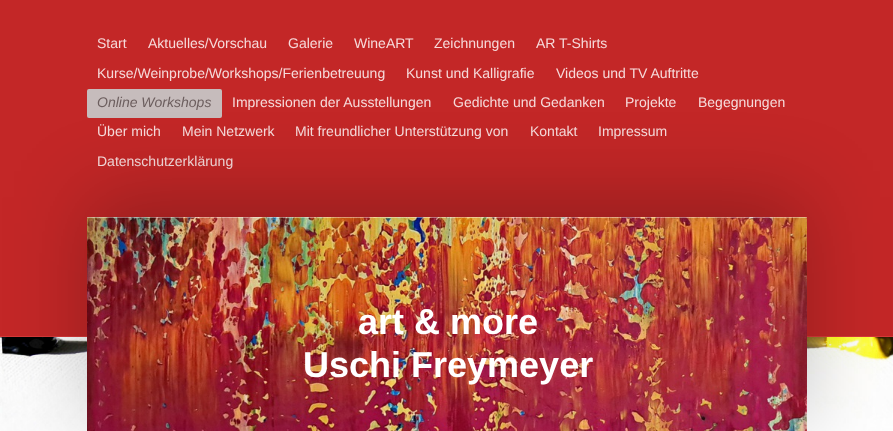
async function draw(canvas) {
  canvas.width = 893
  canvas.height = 431
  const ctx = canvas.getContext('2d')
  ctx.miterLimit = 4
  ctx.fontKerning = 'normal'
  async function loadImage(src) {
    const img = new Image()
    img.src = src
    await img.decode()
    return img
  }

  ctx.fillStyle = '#fff'
  ctx.fillRect(0, 0, 893, 431)
  ctx.drawImage(await loadImage('image0.png'), 0, 337, 893, 94)
  ctx.fillStyle = '#c32727'
  ctx.fillRect(0, 0, 893, 336)
  ctx.fillStyle = '#d63939'
  ctx.fillRect(0, 336, 893, 1)
  ctx.font = '14px Liberation Sans'
  ctx.fillStyle = '#f6dada'
  ctx.fillText('Start', 97, 48)
  ctx.fillText('Aktuelles/Vorschau', 148, 48)
  ctx.fillText('Galerie', 288, 48)
  ctx.fillText('WineART', 354, 48)
  ctx.fillText('Zeichnungen', 434, 48)
  ctx.fillText('AR T-Shirts', 536, 48)
  ctx.fillText('Kurse/Weinprobe/Workshops/Ferienbetreuung', 97, 78)
  ctx.fillText('Kunst und Kalligrafie', 406, 78)
  ctx.fillText('Videos und TV Auftritte', 556, 78)
  ctx.fillStyle = '#c6bcbc'
  ctx.beginPath()
  ctx.roundRect(87, 89, 135, 29, 2)
  ctx.fill()
  ctx.font = 'italic 14px Liberation Sans'
  ctx.fillStyle = '#6c5e5e'
  ctx.fillText('Online Workshops', 97, 107)
  ctx.font = '14px Liberation Sans'
  ctx.fillStyle = '#f6dada'
  ctx.fillText('Impressionen der Ausstellungen', 232, 107)
  ctx.fillText('Gedichte und Gedanken', 453, 107)
  ctx.fillText('Projekte', 625, 107)
  ctx.fillText('Begegnungen', 698, 107)
  ctx.fillText('Über mich', 97, 136)
  ctx.fillText('Mein Netzwerk', 182, 136)
  ctx.fillText('Mit freundlicher Unterstützung von', 295, 136)
  ctx.fillText('Kontakt', 530, 136)
  ctx.fillText('Impressum', 598, 136)
  ctx.fillText('Datenschutzerklärung', 97, 166)
  ctx.fillStyle = '#0000003d'
  ctx.filter = 'blur(40px)'
  ctx.beginPath()
  ctx.roundRect(87, 197, 720, 221, 2)
  ctx.fill()
  ctx.filter = 'none'
  ctx.drawImage(await loadImage('image1.png'), 87, 217, 720, 214)
  ctx.fillStyle = '#ffffff66'
  ctx.fillRect(87, 217, 720, 1)
  ctx.font = 'bold 36px Liberation Sans'
  ctx.fillStyle = '#fff'
  ctx.fillText('art & more', 358, 334)
  ctx.fillText('Uschi Freymeyer', 303, 377)
}

draw(document.querySelector('canvas'))
